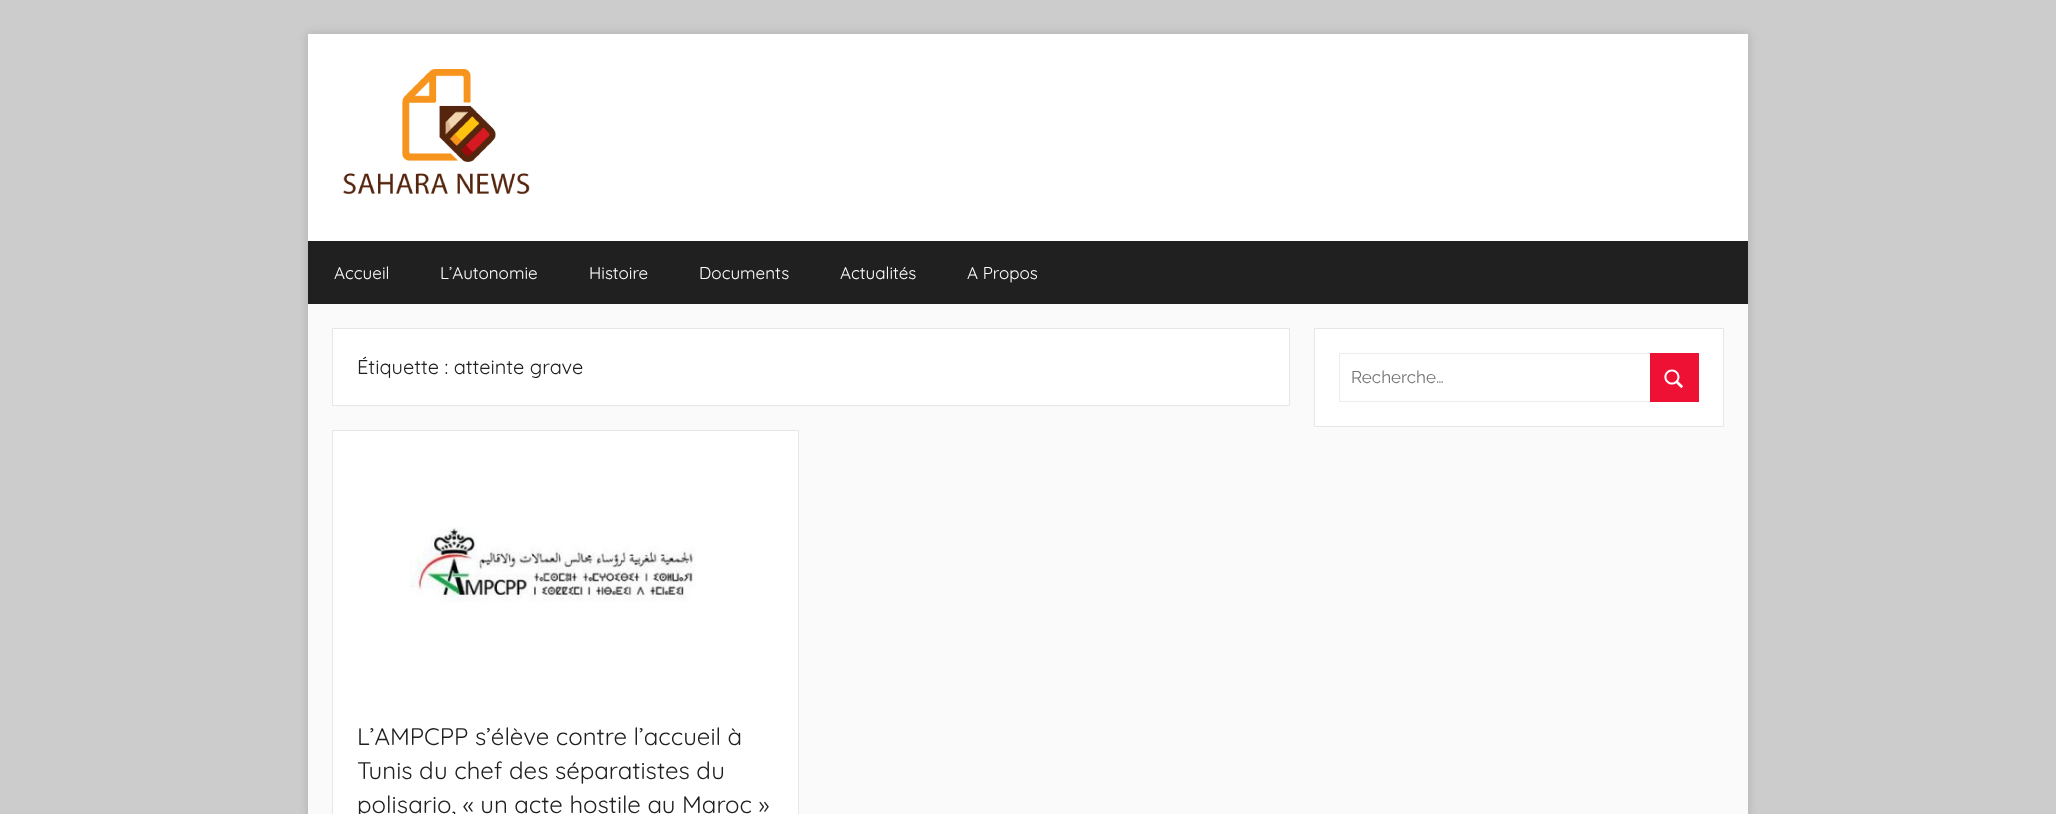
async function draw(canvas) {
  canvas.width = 2056
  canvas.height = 814
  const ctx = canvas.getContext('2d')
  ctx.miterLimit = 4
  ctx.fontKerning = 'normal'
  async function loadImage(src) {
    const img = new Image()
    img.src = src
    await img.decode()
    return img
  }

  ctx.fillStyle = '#ccc'
  ctx.fillRect(0, 0, 2056, 814)
  ctx.fillStyle = '#00000026'
  ctx.filter = 'blur(5px)'
  ctx.beginPath()
  ctx.rect(308, 34, 1440, 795)
  ctx.fill()
  ctx.filter = 'none'
  ctx.fillStyle = '#fafafa'
  ctx.fillRect(308, 304, 1440, 510)
  ctx.fillStyle = '#fff'
  ctx.fillRect(308, 34, 1440, 207)
  ctx.drawImage(await loadImage('image0.png'), 343, 69, 187, 126)
  ctx.fillStyle = '#202020'
  ctx.fillRect(308, 241, 1440, 63)
  ctx.font = '300 17px Quicksand'
  ctx.fillStyle = '#fff'
  ctx.fillText('Accueil', 334, 279)
  ctx.fillText('L’Autonomie', 440, 279)
  ctx.fillText('Histoire', 589, 279)
  ctx.fillText('Documents', 699, 279)
  ctx.fillText('Actualités', 840, 279)
  ctx.fillText('A Propos', 967, 279)
  ctx.beginPath()
  ctx.rect(332.5, 328.5, 957, 77)
  ctx.fill()
  ctx.strokeStyle = '#e6e6e6'
  ctx.stroke()
  ctx.font = '300 20px Quicksand'
  ctx.fillStyle = '#202020'
  ctx.fillText('Étiquette : atteinte grave', 357, 374)
  ctx.fillStyle = '#fff'
  ctx.beginPath()
  ctx.rect(332.5, 430.5, 466, 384)
  ctx.fill()
  ctx.stroke()
  ctx.drawImage(await loadImage('image1.png'), 409, 527, 287, 76)
  ctx.font = '300 24px Quicksand'
  ctx.fillStyle = '#202020'
  ctx.fillText('L’AMPCPP s’élève contre l’accueil à', 357, 745)
  ctx.fillText('Tunis du chef des séparatistes du', 357, 779)
  ctx.fillText('polisario, « un acte hostile au Maroc »', 357, 813)
  ctx.fillStyle = '#fff'
  ctx.beginPath()
  ctx.rect(1314.5, 328.5, 409, 98)
  ctx.fill()
  ctx.stroke()
  ctx.strokeStyle = '#ececec'
  ctx.strokeRect(1339.5, 353.5, 359, 48)
  ctx.font = '100 17px Raleway'
  ctx.fillStyle = '#757575'
  ctx.fillText('Recherche…', 1351, 383)
  ctx.fillStyle = '#e13'
  ctx.fillRect(1650, 353, 49, 49)
  ctx.drawImage(await loadImage('image2.png'), 1664, 369, 20, 20)
}

draw(document.querySelector('canvas'))
